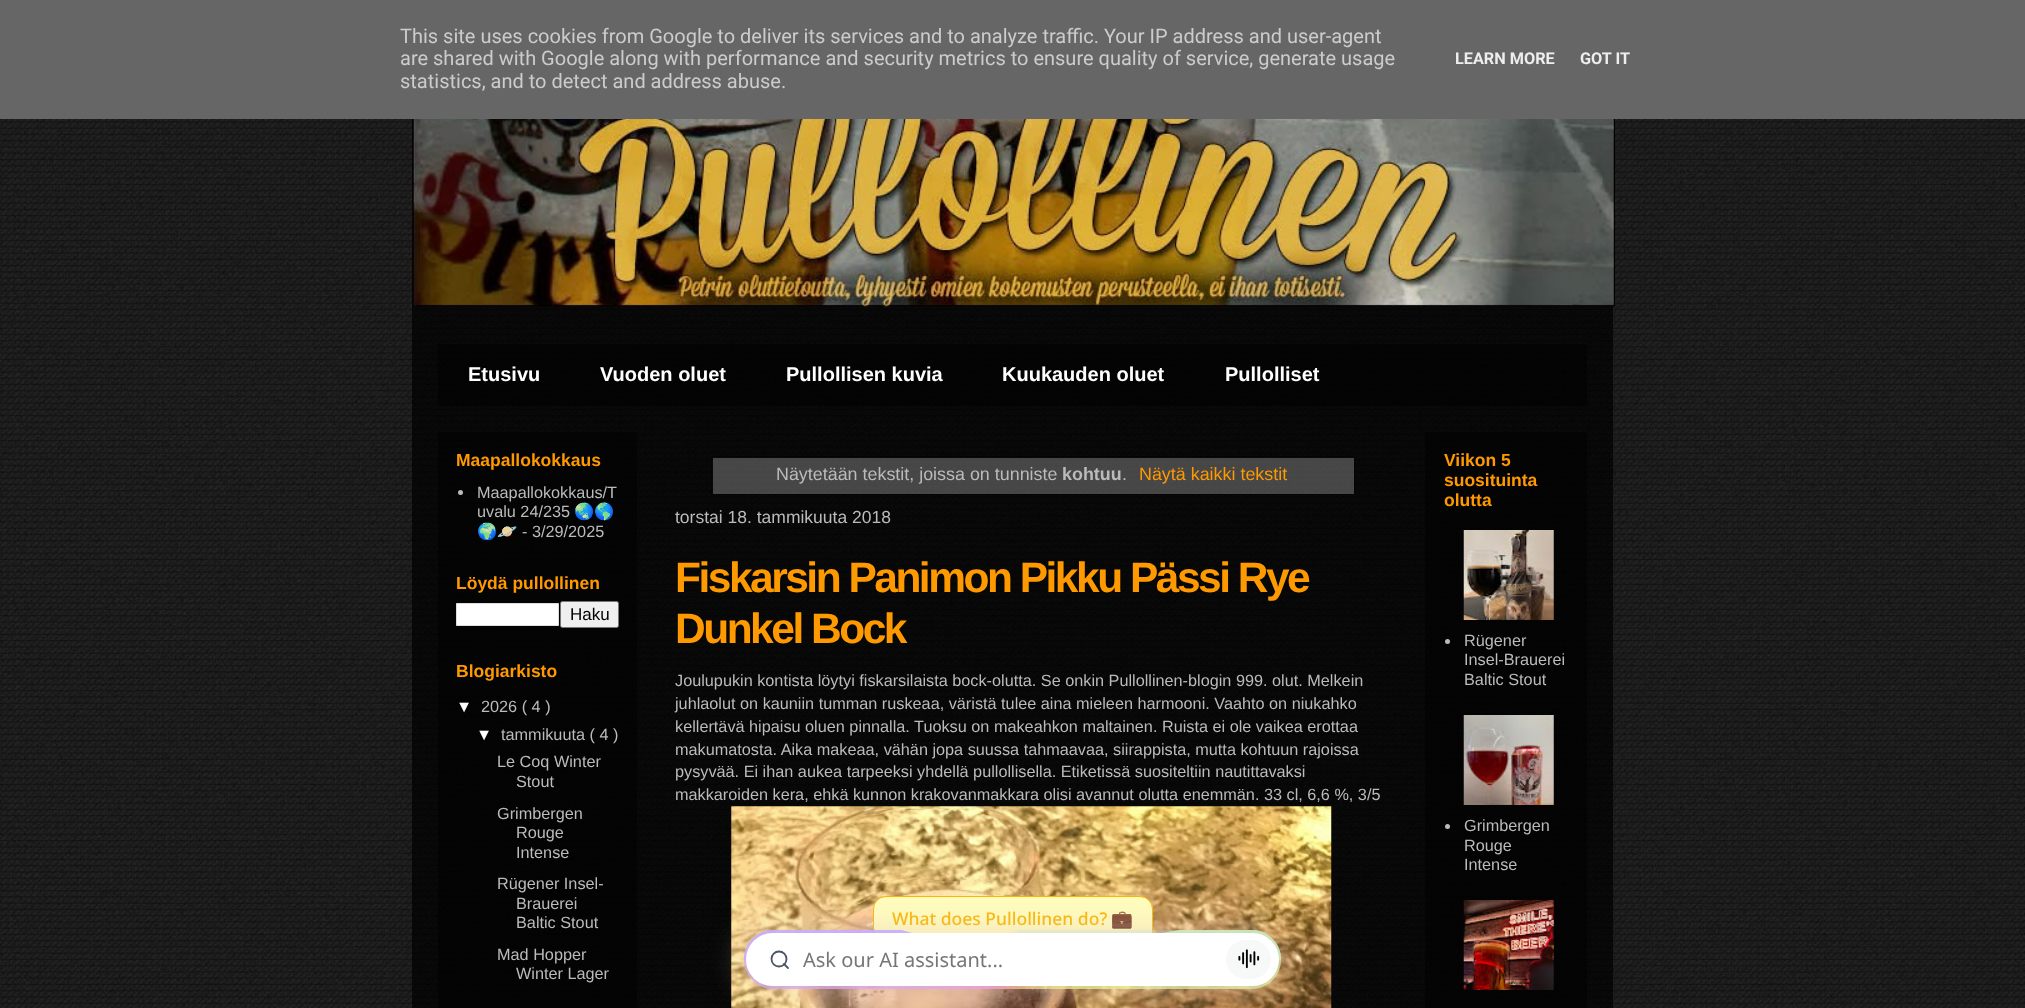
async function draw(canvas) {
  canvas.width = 2025
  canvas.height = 1008
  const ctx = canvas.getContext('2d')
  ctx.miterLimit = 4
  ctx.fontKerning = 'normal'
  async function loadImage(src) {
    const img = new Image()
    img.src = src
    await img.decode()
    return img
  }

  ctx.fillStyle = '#fff'
  ctx.fillRect(0, 0, 2025, 1008)
  ctx.drawImage(await loadImage('image0.png'), 0, 119, 2025, 889)
  ctx.fillStyle = '#666'
  ctx.fillRect(0, 0, 2025, 119)
  ctx.font = '20px Roboto'
  ctx.fillStyle = '#ccc'
  ctx.fillText('This site uses cookies from Google to deliver its services and to analyze traffic. Your IP address and user-agent', 400, 43)
  ctx.fillText('are shared with Google along with performance and security metrics to ensure quality of service, generate usage', 400, 65)
  ctx.fillText('statistics, and to detect and address abuse.', 400, 88)
  ctx.font = 'bold 16.25px Roboto'
  ctx.fillStyle = '#eee'
  ctx.fillText('LEARN MORE', 1455, 64)
  ctx.fillText('GOT IT', 1580, 64)
  ctx.fillStyle = '#000000b3'
  ctx.fillRect(412, 119, 1201, 889)
  ctx.drawImage(await loadImage('image1.png'), 412, 119, 1203, 188)
  ctx.fillStyle = '#00000080'
  ctx.fillRect(438, 344, 1149, 62)
  ctx.font = 'bold 20px Liberation Sans'
  ctx.fillStyle = '#fff'
  ctx.fillText('Etusivu', 468, 381)
  ctx.fillText('Vuoden oluet', 600, 381)
  ctx.fillText('Pullollisen kuvia', 786, 381)
  ctx.fillText('Kuukauden oluet', 1002, 381)
  ctx.fillText('Pullolliset', 1225, 381)
  ctx.fillStyle = '#00000080'
  ctx.fillRect(438, 432, 199, 576)
  ctx.fillRect(1425, 432, 162, 576)
  ctx.font = 'bold 17.5px Liberation Sans'
  ctx.fillStyle = '#f90'
  ctx.fillText('Maapallokokkaus', 456, 466)
  ctx.fillStyle = '#bbb'
  ctx.beginPath()
  ctx.arc(460.5, 492.5, 2.5, 0, 2 * Math.PI)
  ctx.fill()
  ctx.font = '16.25px Liberation Sans'
  ctx.fillText('Maapallokokkaus/T', 477, 498)
  ctx.fillText('uvalu 24/235', 477, 517)
  ctx.font = '16.25px Noto Color Emoji'
  ctx.fillText('🌏🌎', 574, 517)
  ctx.fillText('🌍🪐', 477, 537)
  ctx.font = '16.25px Liberation Sans'
  ctx.fillText('- 3/29/2025', 522, 537)
  ctx.font = 'bold 17.5px Liberation Sans'
  ctx.fillStyle = '#f90'
  ctx.fillText('Löydä pullollinen', 456, 589)
  ctx.fillStyle = '#fff'
  ctx.beginPath()
  ctx.rect(456.5, 603.5, 102, 22)
  ctx.fill()
  ctx.strokeStyle = '#ddd'
  ctx.stroke()
  ctx.fillStyle = '#efefef'
  ctx.beginPath()
  ctx.roundRect(560.5, 601.5, 58, 26, 2)
  ctx.fill()
  ctx.strokeStyle = '#767676'
  ctx.stroke()
  ctx.font = '17px Liberation Sans'
  ctx.fillStyle = '#000'
  ctx.fillText('Haku', 570, 620)
  ctx.font = 'bold 17.5px Liberation Sans'
  ctx.fillStyle = '#f90'
  ctx.fillText('Blogiarkisto', 456, 677)
  ctx.font = '16.25px Liberation Sans'
  ctx.fillStyle = '#fff'
  ctx.fillText('▼', 456, 712)
  ctx.fillStyle = '#bbb'
  ctx.fillText('2026 ( 4 )', 481, 712)
  ctx.fillStyle = '#fff'
  ctx.fillText('▼', 476, 740)
  ctx.fillStyle = '#bbb'
  ctx.fillText('tammikuuta ( 4 )', 501, 740)
  ctx.fillText('Le Coq Winter', 497, 767)
  ctx.fillText('Stout', 516, 787)
  ctx.fillText('Grimbergen', 497, 819)
  ctx.fillText('Rouge', 516, 838)
  ctx.fillText('Intense', 516, 858)
  ctx.fillText('Rügener Insel-', 497, 889)
  ctx.fillText('Brauerei', 516, 909)
  ctx.fillText('Baltic Stout', 516, 928)
  ctx.fillText('Mad Hopper', 497, 960)
  ctx.fillText('Winter Lager', 516, 979)
  ctx.strokeStyle = '#00000066'
  ctx.strokeRect(711.5, 456.5, 643, 38)
  ctx.fillStyle = '#cccccc52'
  ctx.fillRect(713, 458, 641, 36)
  ctx.font = '17.9px Liberation Sans'
  ctx.fillStyle = '#bbb'
  ctx.fillText('Näytetään tekstit, joissa on tunniste', 776, 480)
  ctx.font = 'bold 17.9px Liberation Sans'
  ctx.fillText('kohtuu', 1062, 480)
  ctx.font = '17.9px Liberation Sans'
  ctx.fillText('.', 1122, 480)
  ctx.fillStyle = '#f90'
  ctx.fillText('Näytä kaikki tekstit', 1139, 480)
  ctx.font = '17.5px Liberation Sans'
  ctx.fillStyle = '#bbb'
  ctx.fillText('torstai 18. tammikuuta 2018', 675, 523)
  ctx.letterSpacing = '-2.5px'
  ctx.font = 'bold 42.5px Liberation Sans'
  ctx.fillStyle = '#f90'
  ctx.fillText('Fiskarsin Panimon Pikku Pässi Rye', 675, 592)
  ctx.fillText('Dunkel Bock', 675, 643)
  ctx.letterSpacing = '0px'
  ctx.font = '16.25px Liberation Sans'
  ctx.fillStyle = '#bbb'
  ctx.fillText('Joulupukin kontista löytyi fiskarsilaista bock-olutta. Se onkin Pullollinen-blogin 999. olut. Melkein', 675, 686)
  ctx.fillText('juhlaolut on kauniin tumman ruskeaa, väristä tulee aina mieleen harmooni. Vaahto on niukahko', 675, 709)
  ctx.fillText('kellertävä hipaisu oluen pinnalla. Tuoksu on makeahkon maltainen. Ruista ei ole vaikea erottaa', 675, 732)
  ctx.fillText('makumatosta. Aika makeaa, vähän jopa suussa tahmaavaa, siirappista, mutta kohtuun rajoissa', 675, 755)
  ctx.fillText('pysyvää. Ei ihan aukea tarpeeksi yhdellä pullollisella. Etiketissä suositeltiin nautittavaksi', 675, 777)
  ctx.fillText('makkaroiden kera, ehkä kunnon krakovanmakkara olisi avannut olutta enemmän. 33 cl, 6,6 %, 3/5', 675, 800)
  ctx.drawImage(await loadImage('image2.png'), 731, 806, 601, 202)
  ctx.font = 'bold 17.5px Liberation Sans'
  ctx.fillStyle = '#f90'
  ctx.fillText('Viikon 5', 1444, 466)
  ctx.fillText('suosituinta', 1444, 486)
  ctx.fillText('olutta', 1444, 506)
  ctx.fillStyle = '#bbb'
  ctx.beginPath()
  ctx.arc(1447.5, 641.5, 2.5, 0, 2 * Math.PI)
  ctx.fill()
  ctx.drawImage(await loadImage('image3.png'), 1463, 530, 91, 90)
  ctx.font = '16.25px Liberation Sans'
  ctx.fillText('Rügener', 1464, 646)
  ctx.fillText('Insel-Brauerei', 1464, 665)
  ctx.fillText('Baltic Stout', 1464, 685)
  ctx.beginPath()
  ctx.arc(1447.5, 826.5, 2.5, 0, 2 * Math.PI)
  ctx.fill()
  ctx.drawImage(await loadImage('image4.png'), 1463, 715, 91, 90)
  ctx.fillText('Grimbergen', 1464, 831)
  ctx.fillText('Rouge', 1464, 851)
  ctx.fillText('Intense', 1464, 870)
  ctx.drawImage(await loadImage('image5.png'), 1463, 900, 91, 90)
  ctx.fillStyle = '#fffdbd'
  ctx.beginPath()
  ctx.roundRect(873.5, 896.5, 279, 43, [12.5, 12.5, 0, 12.5])
  ctx.fill()
  ctx.strokeStyle = '#fab700'
  ctx.stroke()
  ctx.font = '500 17.5px Noto Sans'
  ctx.fillStyle = '#fab700'
  ctx.fillText('What does Pullollinen do?', 892, 925)
  ctx.font = '17.5px Noto Color Emoji'
  ctx.fillText('💼', 1111, 925)
  ctx.fillStyle = '#e6c5bf80'
  ctx.filter = 'blur(17.5px)'
  ctx.beginPath()
  ctx.roundRect(744, 930, 537, 59, 29.5)
  ctx.fill()
  ctx.filter = 'none'
  ctx.drawImage(await loadImage('image6.png'), 744, 930, 537, 59)
  ctx.drawImage(await loadImage('image7.png'), 744, 930, 537, 59)
  ctx.fillStyle = '#fff'
  ctx.beginPath()
  ctx.roundRect(746, 933, 533, 53, 26.5)
  ctx.fill()
  ctx.beginPath()
  ctx.arc(779, 959, 7.5, 0, 2 * Math.PI)
  ctx.strokeStyle = '#4b5563'
  ctx.lineWidth = 1.8
  ctx.stroke()
  ctx.beginPath()
  ctx.moveTo(788, 968)
  ctx.lineTo(784, 964)
  ctx.lineCap = 'round'
  ctx.lineJoin = 'round'
  ctx.stroke()
  ctx.font = '20px Noto Sans'
  ctx.fillStyle = '#767676'
  ctx.fillText('Ask our AI assistant...', 803, 967)
  ctx.fillStyle = '#f7f8f8'
  ctx.beginPath()
  ctx.roundRect(1226, 940, 45, 39, 19.5)
  ctx.fill()
  ctx.drawImage(await loadImage('image8.png'), 1238, 949, 22, 20)
}

draw(document.querySelector('canvas'))
